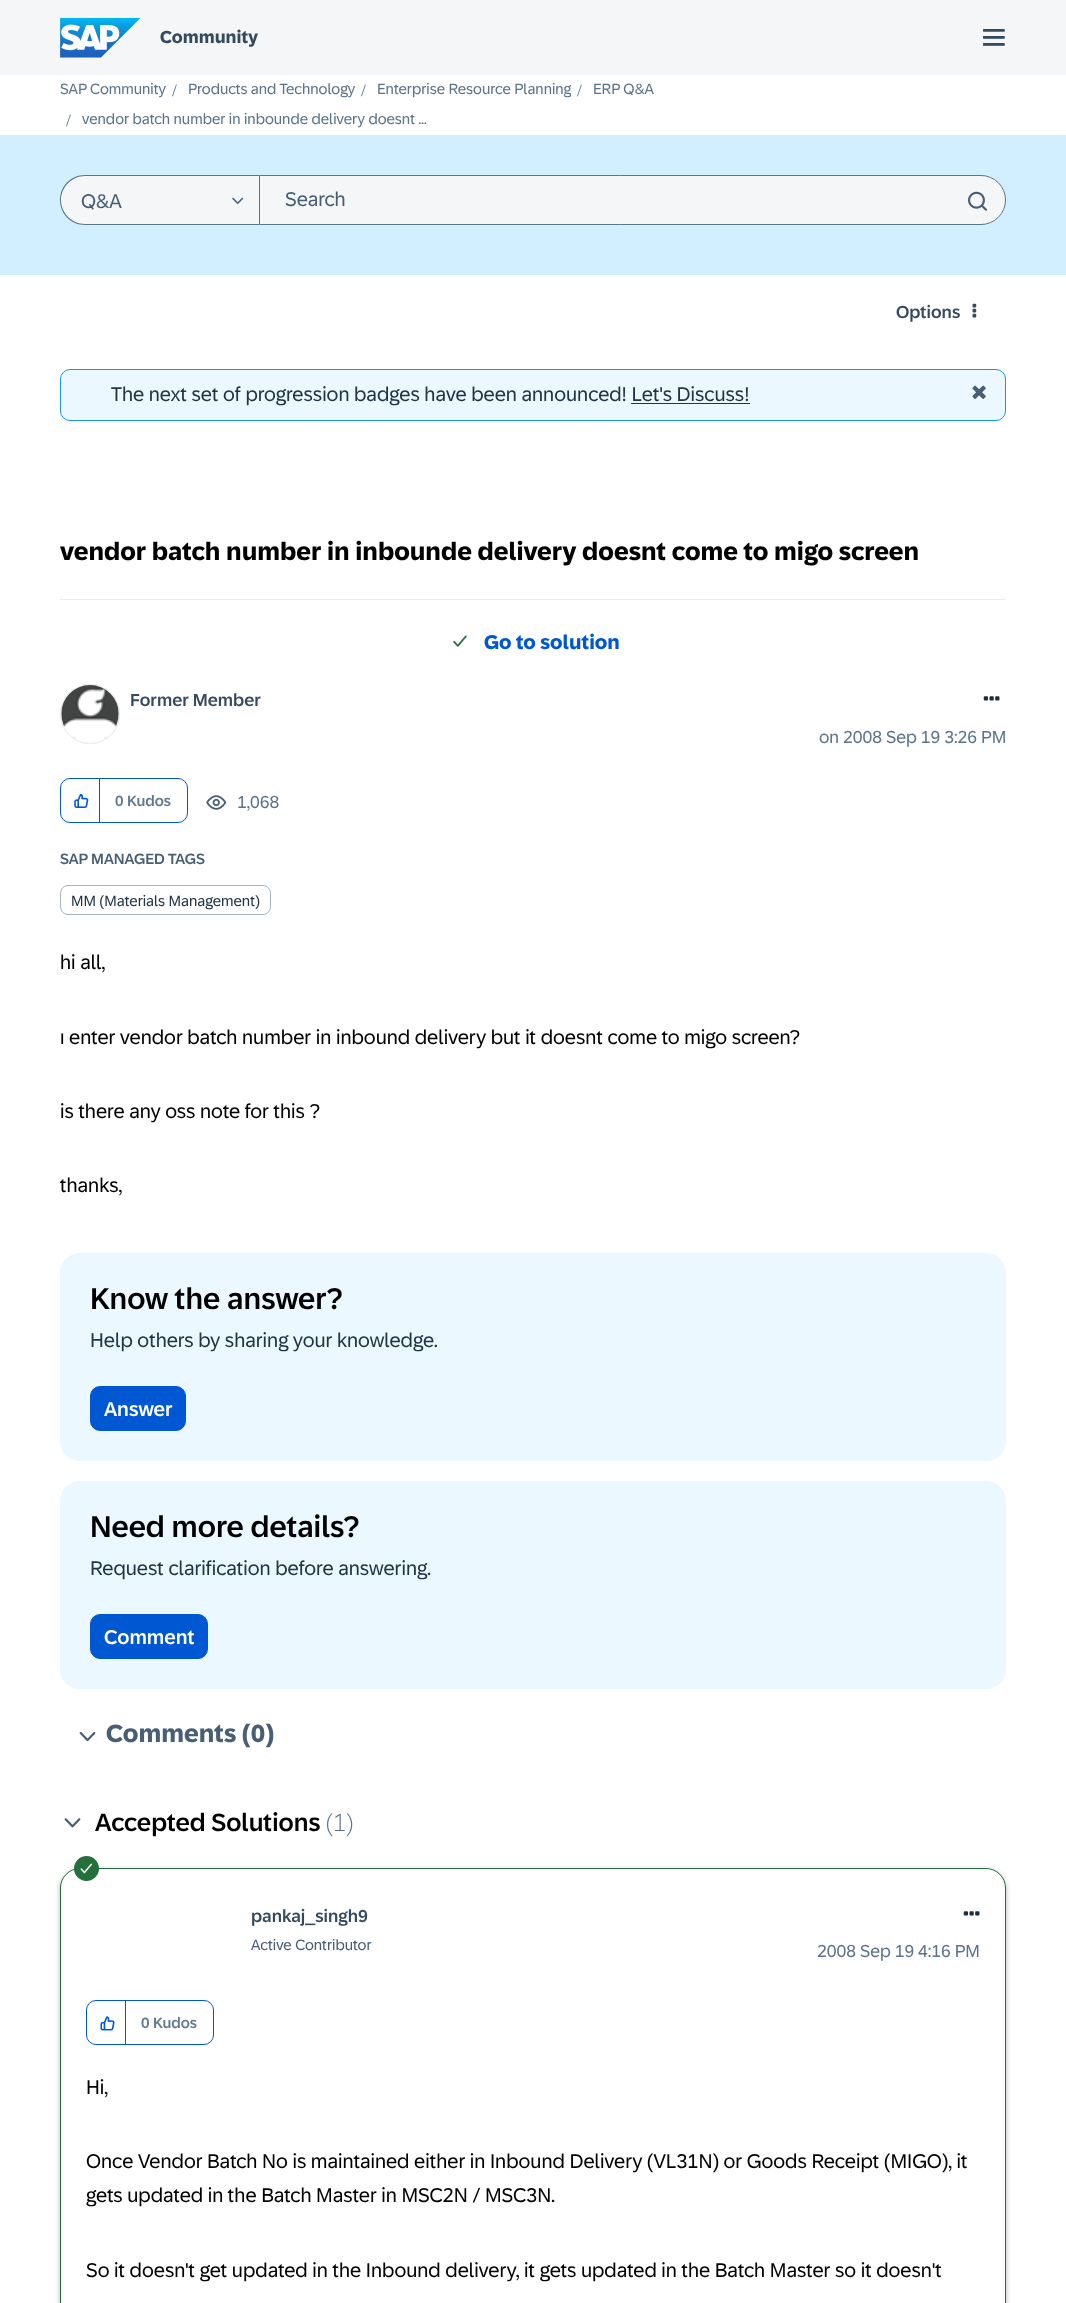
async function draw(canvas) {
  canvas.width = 1066
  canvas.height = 2303
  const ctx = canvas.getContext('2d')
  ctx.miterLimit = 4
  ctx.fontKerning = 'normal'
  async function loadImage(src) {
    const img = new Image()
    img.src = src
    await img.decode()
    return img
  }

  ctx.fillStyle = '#fff'
  ctx.fillRect(0, 0, 1066, 2303)
  ctx.fillStyle = '#f5f6f7'
  ctx.fillRect(0, 0, 1066, 75)
  ctx.drawImage(await loadImage('image0.png'), 60, 18, 80, 40)
  ctx.font = 'bold 17.5px "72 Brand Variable"'
  ctx.fillStyle = '#354a5f'
  ctx.fillText('Community', 160, 43)
  ctx.drawImage(await loadImage('image1.png'), 983, 29, 22, 17)
  ctx.font = '15px "72 Brand Variable"'
  ctx.fillStyle = '#5b738b'
  ctx.fillText('SAP Community', 60, 94)
  ctx.font = '17.5px Liberation Serif'
  ctx.fillText('/', 172, 96)
  ctx.font = '15px "72 Brand Variable"'
  ctx.fillText('Products and Technology', 188, 94)
  ctx.font = '17.5px Liberation Serif'
  ctx.fillText('/', 361, 96)
  ctx.font = '15px "72 Brand Variable"'
  ctx.fillText('Enterprise Resource Planning', 377, 94)
  ctx.font = '17.5px Liberation Serif'
  ctx.fillText('/', 577, 96)
  ctx.font = '15px "72 Brand Variable"'
  ctx.fillText('ERP Q&A', 593, 94)
  ctx.font = '17.5px Liberation Serif'
  ctx.fillText('/', 66, 126)
  ctx.font = '15px "72 Brand Variable"'
  ctx.fillText('vendor batch number in inbounde delivery doesnt ...', 82, 124)
  ctx.fillStyle = '#d1efff'
  ctx.fillRect(0, 135, 1066, 140)
  ctx.fillStyle = '#f5f6f7'
  ctx.beginPath()
  ctx.roundRect(60, 175, 199, 50, [25, 0, 0, 25])
  ctx.fill()
  ctx.fillStyle = '#5b738b'
  ctx.beginPath()
  ctx.moveTo(85, 175)
  ctx.lineTo(259, 175)
  ctx.lineTo(259, 225)
  ctx.lineTo(85, 225)
  ctx.bezierCurveTo(71, 225, 60, 214, 60, 200)
  ctx.bezierCurveTo(60, 186, 71, 175, 85, 175)
  ctx.closePath()
  ctx.moveTo(85, 176)
  ctx.lineTo(259, 176)
  ctx.lineTo(259, 224)
  ctx.lineTo(85, 224)
  ctx.bezierCurveTo(72, 224, 61, 213, 61, 200)
  ctx.bezierCurveTo(61, 187, 72, 176, 85, 176)
  ctx.closePath()
  ctx.fill('evenodd')
  ctx.font = '20px "72 Brand Variable"'
  ctx.fillStyle = '#475e75'
  ctx.fillText('Q&A', 81, 208)
  ctx.drawImage(await loadImage('image2.png'), 232, 197, 12, 8)
  ctx.fillStyle = '#f5f6f7'
  ctx.beginPath()
  ctx.roundRect(259.5, 175.5, 746, 49, [0, 24.5, 24.5, 0])
  ctx.fill()
  ctx.strokeStyle = '#5b738b'
  ctx.stroke()
  ctx.fillStyle = '#475e75'
  ctx.fillText('Search', 285, 206)
  ctx.drawImage(await loadImage('image3.png'), 968, 191, 19, 20)
  ctx.font = '500 17.5px "72 Brand Variable"'
  ctx.fillStyle = '#354a5f'
  ctx.fillText('Options', 896, 318)
  ctx.drawImage(await loadImage('image4.png'), 972, 303, 5, 15)
  ctx.fillStyle = '#ebf8ff'
  ctx.beginPath()
  ctx.roundRect(60.5, 369.5, 945, 51, 9.5)
  ctx.fill()
  ctx.strokeStyle = '#1b90ff'
  ctx.stroke()
  ctx.font = '20px "72 Brand Variable"'
  ctx.fillStyle = '#223548'
  ctx.fillText('The next set of progression badges have been announced! Let\'s Discuss!', 111, 401)
  ctx.fillRect(631, 403, 119, 1)
  ctx.drawImage(await loadImage('image5.png'), 972, 385, 14, 14)
  ctx.fillStyle = '#eaecee'
  ctx.fillRect(60, 599, 946, 1)
  ctx.font = 'bold 25px "72 Brand Variable"'
  ctx.fillStyle = '#000'
  ctx.fillText('vendor batch number in inbounde delivery doesnt come to migo screen', 60, 560)
  ctx.drawImage(await loadImage('image6.png'), 453, 635, 14, 12)
  ctx.font = 'bold 20px "72 Brand Variable"'
  ctx.fillStyle = '#0057d2'
  ctx.fillText('Go to solution', 484, 649)
  ctx.save()
  ctx.beginPath()
  ctx.moveTo(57, 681)
  ctx.lineTo(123, 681)
  ctx.lineTo(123, 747)
  ctx.lineTo(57, 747)
  ctx.closePath()
  ctx.moveTo(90, 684)
  ctx.bezierCurveTo(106.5, 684, 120, 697.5, 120, 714)
  ctx.bezierCurveTo(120, 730.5, 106.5, 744, 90, 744)
  ctx.bezierCurveTo(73.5, 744, 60, 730.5, 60, 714)
  ctx.bezierCurveTo(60, 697.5, 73.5, 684, 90, 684)
  ctx.closePath()
  ctx.clip('evenodd')
  ctx.fillStyle = '#c4c4c4'
  ctx.filter = 'blur(0.5px)'
  ctx.beginPath()
  ctx.roundRect(60, 684, 60, 60, 30)
  ctx.fill()
  ctx.filter = 'none'
  ctx.restore()
  ctx.beginPath()
  ctx.arc(90, 714, 29.5, 0, 2 * Math.PI)
  ctx.strokeStyle = '#eaecee'
  ctx.stroke()
  ctx.drawImage(await loadImage('image7.png'), 61, 685, 58, 54)
  ctx.font = '500 17.5px "72 Brand Variable"'
  ctx.fillStyle = '#354a5f'
  ctx.fillText('Former Member', 130, 706)
  ctx.drawImage(await loadImage('image8.png'), 983, 696, 17, 5)
  ctx.font = '17.5px "72 Brand Variable"'
  ctx.fillStyle = '#5b738b'
  ctx.fillText('on 2008 Sep 19 3:26 PM', 819, 743)
  ctx.beginPath()
  ctx.roundRect(60.5, 778.5, 127, 44, 9.5)
  ctx.strokeStyle = '#0057d2'
  ctx.stroke()
  ctx.fillStyle = '#0057d2'
  ctx.fillRect(99, 779, 1, 44)
  ctx.drawImage(await loadImage('image9.png'), 74, 793, 15, 15)
  ctx.font = '500 15px "72 Brand Variable"'
  ctx.fillStyle = '#617990'
  ctx.fillText('0 Kudos', 115, 806)
  ctx.drawImage(await loadImage('image10.png'), 206, 795, 21, 15)
  ctx.font = '17.5px "72 Brand Variable"'
  ctx.fillStyle = '#5b738b'
  ctx.fillText('1,068', 237, 808)
  ctx.font = '500 15px "72 Brand Variable"'
  ctx.fillStyle = '#475e75'
  ctx.fillText('SAP MANAGED TAGS', 60, 864)
  ctx.beginPath()
  ctx.roundRect(60.5, 885.5, 210, 29, 7.5)
  ctx.strokeStyle = '#a9b4be'
  ctx.stroke()
  ctx.font = '15px "72 Brand Variable"'
  ctx.fillStyle = '#223548'
  ctx.fillText('MM (Materials Management)', 71, 906)
  ctx.font = '20px "72 Brand Variable"'
  ctx.fillStyle = '#000'
  ctx.fillText('hi all,', 60, 969)
  ctx.fillText('ı enter vendor batch number in inbound delivery but it doesnt come to migo screen?', 60, 1044)
  ctx.fillText('is there any oss note for this ?', 60, 1118)
  ctx.fillText('thanks,', 60, 1192)
  ctx.fillStyle = '#ebf8ff'
  ctx.beginPath()
  ctx.roundRect(60, 1253, 946, 208, 20)
  ctx.fill()
  ctx.font = '500 30px "72 Brand Variable"'
  ctx.fillStyle = '#000'
  ctx.fillText('Know the answer?', 90, 1309)
  ctx.font = '20px "72 Brand Variable"'
  ctx.fillStyle = '#223548'
  ctx.fillText('Help others by sharing your knowledge.', 90, 1347)
  ctx.fillStyle = '#0057d2'
  ctx.beginPath()
  ctx.roundRect(90.5, 1386.5, 95, 44, 9.5)
  ctx.fill()
  ctx.strokeStyle = '#0057d2'
  ctx.stroke()
  ctx.font = '500 20px "72 Brand Variable"'
  ctx.fillStyle = '#fff'
  ctx.fillText('Answer', 104, 1416)
  ctx.fillStyle = '#ebf8ff'
  ctx.beginPath()
  ctx.roundRect(60, 1481, 946, 208, 20)
  ctx.fill()
  ctx.font = '500 30px "72 Brand Variable"'
  ctx.fillStyle = '#000'
  ctx.fillText('Need more details?', 90, 1537)
  ctx.font = '20px "72 Brand Variable"'
  ctx.fillStyle = '#223548'
  ctx.fillText('Request clarification before answering.', 90, 1575)
  ctx.fillStyle = '#0057d2'
  ctx.beginPath()
  ctx.roundRect(90.5, 1614.5, 117, 44, 9.5)
  ctx.fill()
  ctx.stroke()
  ctx.font = '500 20px "72 Brand Variable"'
  ctx.fillStyle = '#fff'
  ctx.fillText('Comment', 104, 1644)
  ctx.drawImage(await loadImage('image11.png'), 79, 1732, 17, 10)
  ctx.font = 'bold 25px "72 Brand Variable"'
  ctx.fillStyle = '#475e75'
  ctx.fillText('Comments (0)', 106, 1742)
  ctx.drawImage(await loadImage('image12.png'), 64, 1818, 17, 10)
  ctx.font = '500 25px "72 Brand Variable"'
  ctx.fillStyle = '#000'
  ctx.fillText('Accepted Solutions', 95, 1831)
  ctx.font = '300 25px "72 Brand Variable"'
  ctx.fillStyle = '#5b738b'
  ctx.fillText('(1)', 326, 1831)
  ctx.fillStyle = '#22364933'
  ctx.filter = 'blur(2.5px)'
  ctx.beginPath()
  ctx.roundRect(60, 1870, 946, 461, 20)
  ctx.fill()
  ctx.filter = 'none'
  ctx.filter = 'blur(2.5px)'
  ctx.beginPath()
  ctx.roundRect(60, 1870, 946, 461, 20)
  ctx.fill()
  ctx.filter = 'none'
  ctx.fillStyle = '#fff'
  ctx.beginPath()
  ctx.roundRect(60.5, 1868.5, 945, 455, 19.5)
  ctx.fill()
  ctx.strokeStyle = '#256f3a'
  ctx.stroke()
  ctx.fillStyle = '#256f3a'
  ctx.beginPath()
  ctx.arc(86.5, 1868.5, 12.5, 0, 2 * Math.PI)
  ctx.fill()
  ctx.drawImage(await loadImage('image13.png'), 80, 1863, 12, 11)
  ctx.font = '500 17.5px "72 Brand Variable"'
  ctx.fillStyle = '#354a5f'
  ctx.fillText('pankaj_singh9', 251, 1922)
  ctx.font = '15px "72 Brand Variable"'
  ctx.fillStyle = '#475e75'
  ctx.fillText('Active Contributor', 251, 1950)
  ctx.drawImage(await loadImage('image8.png'), 963, 1911, 17, 5)
  ctx.font = '17.5px "72 Brand Variable"'
  ctx.fillStyle = '#5b738b'
  ctx.fillText('2008 Sep 19', 817, 1957)
  ctx.fillText('4:16 PM', 918, 1957)
  ctx.beginPath()
  ctx.roundRect(86.5, 2000.5, 127, 44, 9.5)
  ctx.strokeStyle = '#0057d2'
  ctx.stroke()
  ctx.fillStyle = '#0057d2'
  ctx.fillRect(125, 2001, 1, 44)
  ctx.drawImage(await loadImage('image14.png'), 100, 2016, 15, 15)
  ctx.font = '500 15px "72 Brand Variable"'
  ctx.fillStyle = '#617990'
  ctx.fillText('0 Kudos', 141, 2028)
  ctx.font = '20px "72 Brand Variable"'
  ctx.fillStyle = '#000'
  ctx.fillText('Hi,', 86, 2094)
  ctx.fillText('Once Vendor Batch No is maintained either in Inbound Delivery (VL31N) or Goods Receipt (MIGO), it', 86, 2168)
  ctx.fillText('gets updated in the Batch Master in MSC2N / MSC3N.', 86, 2202)
  ctx.fillText('So it doesn\'t get updated in the Inbound delivery, it gets updated in the Batch Master so it doesn\'t', 86, 2277)
}

draw(document.querySelector('canvas'))
